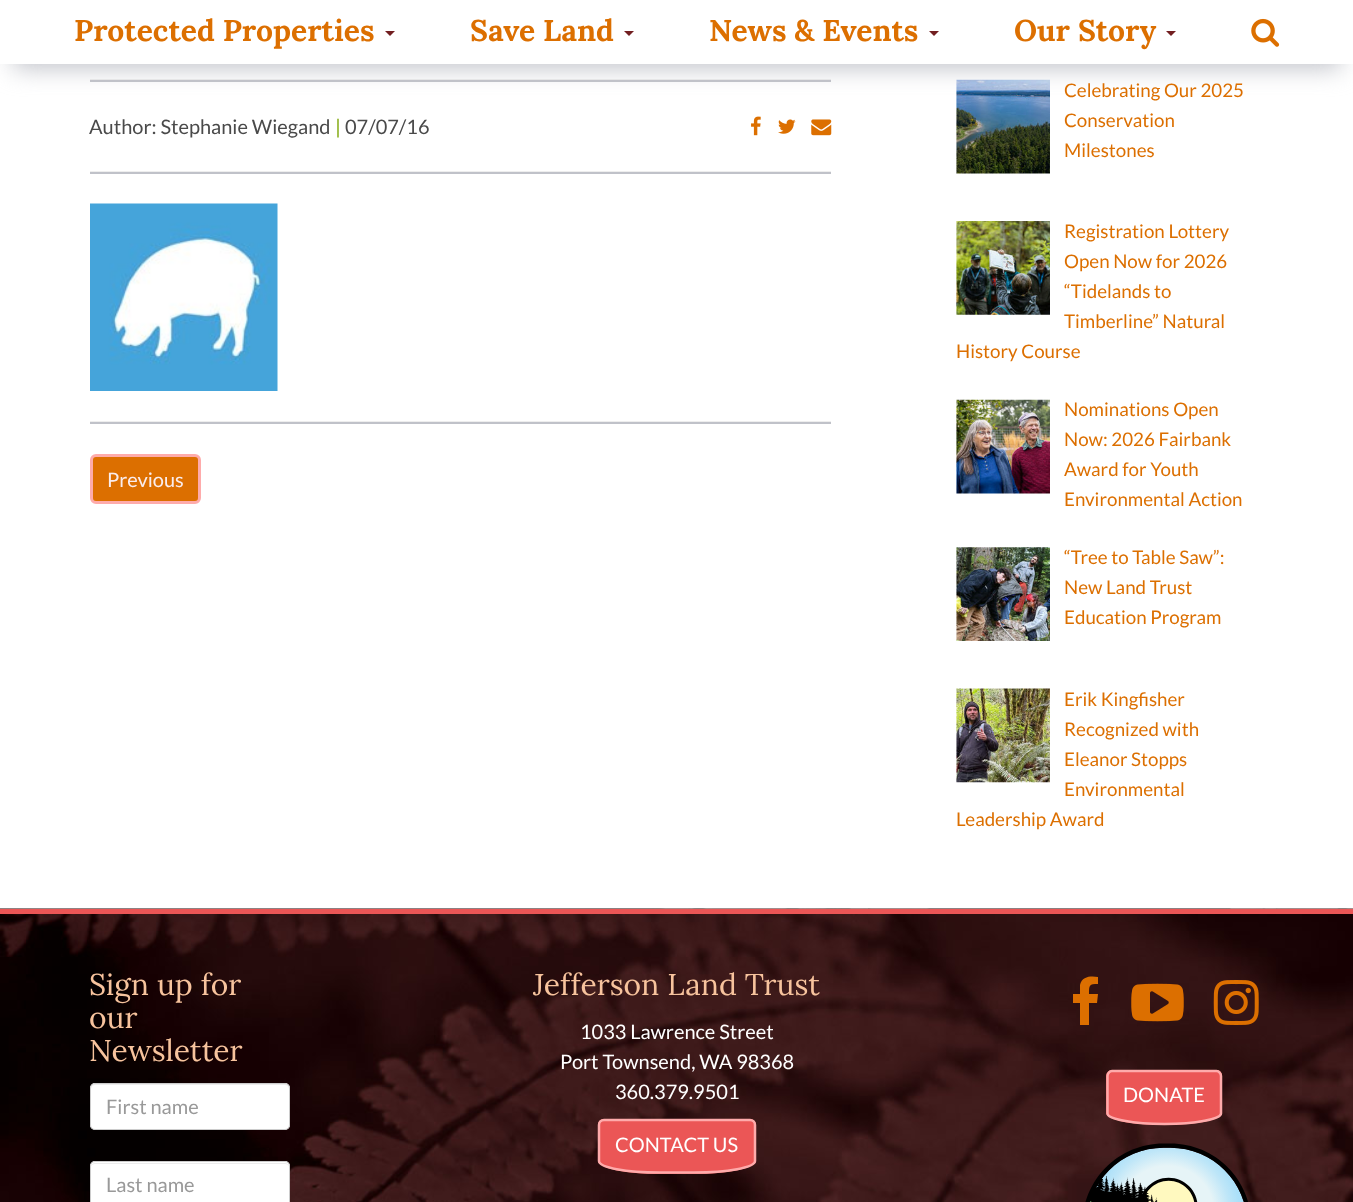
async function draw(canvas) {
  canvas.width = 1353
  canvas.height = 1202
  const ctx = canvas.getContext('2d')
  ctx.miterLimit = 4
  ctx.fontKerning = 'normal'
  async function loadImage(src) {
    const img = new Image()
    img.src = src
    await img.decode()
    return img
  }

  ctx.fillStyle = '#fff'
  ctx.fillRect(0, 0, 1353, 1202)
  ctx.fillStyle = '#c0c2c9'
  ctx.fillRect(90, 80, 741, 2)
  ctx.fillStyle = '#eee'
  ctx.fillRect(90, 79, 741, 1)
  ctx.drawImage(await loadImage('image5.png'), 956, 79, 94, 95)
  ctx.save()
  ctx.beginPath()
  ctx.moveTo(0, 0)
  ctx.lineTo(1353, 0)
  ctx.lineTo(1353, 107)
  ctx.lineTo(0, 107)
  ctx.closePath()
  ctx.moveTo(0, 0)
  ctx.lineTo(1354, 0)
  ctx.lineTo(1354, 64)
  ctx.lineTo(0, 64)
  ctx.closePath()
  ctx.clip('evenodd')
  ctx.fillStyle = '#c0c2c9'
  ctx.filter = 'blur(12.5px)'
  ctx.beginPath()
  ctx.rect(13, 29, 1328, 39)
  ctx.fill()
  ctx.filter = 'none'
  ctx.restore()
  ctx.fillStyle = '#fffffff2'
  ctx.fillRect(6, 63, 1342, 1)
  ctx.font = 'bold 30px Lora'
  ctx.fillStyle = '#dc6f00'
  ctx.fillText('Protected Properties', 74, 41)
  ctx.fillStyle = '#721f21'
  ctx.beginPath()
  ctx.moveTo(385, 31)
  ctx.lineTo(395, 31)
  ctx.lineTo(390, 36)
  ctx.closePath()
  ctx.fill()
  ctx.fillStyle = '#dc6f00'
  ctx.fillText('Save Land', 470, 41)
  ctx.fillStyle = '#721f21'
  ctx.beginPath()
  ctx.moveTo(624, 31)
  ctx.lineTo(634, 31)
  ctx.lineTo(629, 36)
  ctx.closePath()
  ctx.fill()
  ctx.fillStyle = '#dc6f00'
  ctx.fillText('News & Events', 709, 41)
  ctx.fillStyle = '#721f21'
  ctx.beginPath()
  ctx.moveTo(929, 31)
  ctx.lineTo(939, 31)
  ctx.lineTo(934, 36)
  ctx.closePath()
  ctx.fill()
  ctx.fillStyle = '#dc6f00'
  ctx.fillText('Our Story', 1014, 41)
  ctx.fillStyle = '#721f21'
  ctx.beginPath()
  ctx.moveTo(1166, 31)
  ctx.lineTo(1176, 31)
  ctx.lineTo(1171, 36)
  ctx.closePath()
  ctx.fill()
  ctx.drawImage(await loadImage('image0.png'), 1251, 18, 29, 29)
  ctx.font = '20px Lato'
  ctx.fillStyle = '#4a4a4a'
  ctx.fillText('Author: Stephanie Wiegand', 89, 134)
  ctx.fillStyle = '#7fa709'
  ctx.fillText('|', 335, 134)
  ctx.fillStyle = '#4a4a4a'
  ctx.fillText('07/07/16', 345, 134)
  ctx.drawImage(await loadImage('image1.png'), 751, 116, 10, 20)
  ctx.drawImage(await loadImage('image2.png'), 778, 119, 18, 15)
  ctx.drawImage(await loadImage('image3.png'), 811, 119, 21, 17)
  ctx.fillStyle = '#c0c2c9'
  ctx.fillRect(90, 172, 741, 2)
  ctx.fillStyle = '#eee'
  ctx.fillRect(90, 171, 741, 1)
  ctx.drawImage(await loadImage('image4.png'), 90, 203, 188, 188)
  ctx.fillStyle = '#c0c2c9'
  ctx.fillRect(90, 422, 741, 2)
  ctx.fillStyle = '#eee'
  ctx.fillRect(90, 421, 741, 1)
  ctx.fillStyle = '#dc6f00'
  ctx.beginPath()
  ctx.roundRect(91.5, 455.5, 108, 47, 4.5)
  ctx.fill()
  ctx.strokeStyle = '#feabab'
  ctx.lineWidth = 3
  ctx.stroke()
  ctx.fillStyle = '#faecec'
  ctx.fillText('Previous', 107, 487)
  ctx.font = '18.75px Lato'
  ctx.fillStyle = '#dc6f00'
  ctx.fillText('Celebrating Our 2025', 1064, 97)
  ctx.fillText('Conservation', 1064, 127)
  ctx.fillText('Milestones', 1064, 157)
  ctx.drawImage(await loadImage('image6.png'), 956, 221, 94, 94)
  ctx.fillText('Registration Lottery', 1064, 238)
  ctx.fillText('Open Now for 2026', 1064, 268)
  ctx.fillText('“Tidelands to', 1064, 298)
  ctx.fillText('Timberline” Natural', 1064, 328)
  ctx.fillText('History Course', 956, 358)
  ctx.drawImage(await loadImage('image7.png'), 956, 399, 94, 95)
  ctx.fillText('Nominations Open', 1064, 416)
  ctx.fillText('Now: 2026 Fairbank', 1064, 446)
  ctx.fillText('Award for Youth', 1064, 476)
  ctx.fillText('Environmental Action', 1064, 506)
  ctx.drawImage(await loadImage('image8.png'), 956, 547, 94, 94)
  ctx.fillText('“Tree to Table Saw”:', 1064, 564)
  ctx.fillText('New Land Trust', 1064, 594)
  ctx.fillText('Education Program', 1064, 624)
  ctx.drawImage(await loadImage('image9.png'), 956, 688, 94, 95)
  ctx.fillText('Erik Kingfisher', 1064, 706)
  ctx.fillText('Recognized with', 1064, 736)
  ctx.fillText('Eleanor Stopps', 1064, 766)
  ctx.fillText('Environmental', 1064, 796)
  ctx.fillText('Leadership Award', 956, 826)
  ctx.drawImage(await loadImage('image10.png'), 0, 908, 1353, 294)
  ctx.fillStyle = '#eb5656'
  ctx.fillRect(0, 909, 1353, 5)
  ctx.font = '30px Lora'
  ctx.fillStyle = '#f7c39d'
  ctx.fillText('Sign up for', 89, 995)
  ctx.fillText('our', 89, 1028)
  ctx.fillText('Newsletter', 89, 1061)
  ctx.fillStyle = '#fff'
  ctx.beginPath()
  ctx.roundRect(90, 1083, 200, 47, 5)
  ctx.fill()
  ctx.fillStyle = '#ececec'
  ctx.beginPath()
  ctx.moveTo(95, 1085)
  ctx.lineTo(285, 1085)
  ctx.bezierCurveTo(287, 1085, 289, 1087, 289, 1089)
  ctx.lineTo(289, 1088)
  ctx.bezierCurveTo(289, 1086, 287, 1084, 285, 1084)
  ctx.lineTo(95, 1084)
  ctx.bezierCurveTo(93, 1084, 91, 1086, 91, 1088)
  ctx.lineTo(91, 1089)
  ctx.bezierCurveTo(91, 1087, 93, 1085, 95, 1085)
  ctx.closePath()
  ctx.fill()
  ctx.beginPath()
  ctx.roundRect(90.5, 1083.5, 199, 46, 4.5)
  ctx.strokeStyle = '#ccc'
  ctx.lineWidth = 1
  ctx.stroke()
  ctx.font = '20px Lato'
  ctx.fillStyle = '#999'
  ctx.fillText('First name', 106, 1114)
  ctx.fillStyle = '#fff'
  ctx.beginPath()
  ctx.roundRect(90, 1161, 200, 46, 5)
  ctx.fill()
  ctx.fillStyle = '#ececec'
  ctx.beginPath()
  ctx.moveTo(95, 1164)
  ctx.lineTo(285, 1164)
  ctx.bezierCurveTo(287, 1164, 289, 1165, 289, 1168)
  ctx.lineTo(289, 1167)
  ctx.bezierCurveTo(289, 1165, 287, 1163, 285, 1163)
  ctx.lineTo(95, 1163)
  ctx.bezierCurveTo(93, 1163, 91, 1165, 91, 1167)
  ctx.lineTo(91, 1168)
  ctx.bezierCurveTo(91, 1165, 93, 1164, 95, 1164)
  ctx.closePath()
  ctx.fill()
  ctx.beginPath()
  ctx.roundRect(90.5, 1161.5, 199, 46, 4.5)
  ctx.stroke()
  ctx.fillStyle = '#999'
  ctx.fillText('Last name', 106, 1192)
  ctx.font = '30px Lora'
  ctx.fillStyle = '#f7c39d'
  ctx.fillText('Jefferson Land Trust', 533, 995)
  ctx.font = '20px Lato'
  ctx.fillStyle = '#fff'
  ctx.fillText('1033 Lawrence Street', 580, 1039)
  ctx.fillText('Port Townsend, WA 98368', 560, 1069)
  ctx.fillText('360.379.9501', 615, 1099)
  ctx.fillStyle = '#eb5656'
  ctx.beginPath()
  ctx.moveTo(604, 1119)
  ctx.lineTo(750, 1119)
  ctx.bezierCurveTo(753, 1119, 756, 1122, 756, 1125)
  ctx.lineTo(756, 1161)
  ctx.bezierCurveTo(756, 1168, 728, 1174, 694, 1174)
  ctx.lineTo(660, 1174)
  ctx.bezierCurveTo(625, 1174, 598, 1168, 598, 1161)
  ctx.lineTo(598, 1125)
  ctx.bezierCurveTo(598, 1122, 600, 1119, 604, 1119)
  ctx.closePath()
  ctx.fill()
  ctx.beginPath()
  ctx.moveTo(604, 1120)
  ctx.lineTo(750, 1120)
  ctx.bezierCurveTo(753, 1120, 755, 1122, 755, 1125)
  ctx.lineTo(755, 1161)
  ctx.bezierCurveTo(755, 1167.5, 727.5, 1172.5, 694, 1172.5)
  ctx.lineTo(660, 1172.5)
  ctx.bezierCurveTo(626, 1172.5, 599, 1167.5, 599, 1161)
  ctx.lineTo(599, 1125)
  ctx.bezierCurveTo(599, 1122, 601, 1120, 604, 1120)
  ctx.closePath()
  ctx.strokeStyle = '#feabab'
  ctx.lineWidth = 2.5
  ctx.stroke()
  ctx.fillStyle = '#fff'
  ctx.fillText('CONTACT US', 615, 1152)
  ctx.fillStyle = '#dc6f00'
  ctx.beginPath()
  ctx.moveTo(1098, 977)
  ctx.lineTo(1098, 984)
  ctx.bezierCurveTo(1089, 984, 1089, 985, 1089, 994)
  ctx.lineTo(1098, 994)
  ctx.lineTo(1097, 1003)
  ctx.lineTo(1089, 1003)
  ctx.lineTo(1089, 1025)
  ctx.lineTo(1080, 1025)
  ctx.lineTo(1080, 1003)
  ctx.lineTo(1073, 1003)
  ctx.lineTo(1073, 994)
  ctx.lineTo(1080, 994)
  ctx.lineTo(1080, 985)
  ctx.bezierCurveTo(1082, 976, 1091, 976, 1098, 977)
  ctx.closePath()
  ctx.fill()
  ctx.drawImage(await loadImage('image11.png'), 1131, 983, 53, 39)
  ctx.drawImage(await loadImage('image12.png'), 1213, 980, 46, 45)
  ctx.fillStyle = '#eb5656'
  ctx.beginPath()
  ctx.moveTo(1112, 1070)
  ctx.lineTo(1217, 1070)
  ctx.bezierCurveTo(1220, 1070, 1222, 1073, 1222, 1076)
  ctx.lineTo(1222, 1113)
  ctx.bezierCurveTo(1222, 1120, 1196, 1125, 1164, 1125)
  ctx.bezierCurveTo(1132, 1125, 1106, 1120, 1106, 1113)
  ctx.lineTo(1106, 1076)
  ctx.bezierCurveTo(1106, 1073, 1109, 1070, 1112, 1070)
  ctx.closePath()
  ctx.fill()
  ctx.beginPath()
  ctx.moveTo(1112, 1071)
  ctx.lineTo(1216.5, 1071)
  ctx.bezierCurveTo(1219, 1071, 1221, 1073.5, 1221, 1076)
  ctx.lineTo(1221, 1113.5)
  ctx.bezierCurveTo(1221, 1119, 1196, 1124, 1164.5, 1124)
  ctx.bezierCurveTo(1133, 1124, 1107.5, 1119, 1107.5, 1113.5)
  ctx.lineTo(1107.5, 1076)
  ctx.bezierCurveTo(1107.5, 1073.5, 1109.5, 1071, 1112, 1071)
  ctx.closePath()
  ctx.stroke()
  ctx.fillStyle = '#fff'
  ctx.fillText('DONATE', 1123, 1102)
  ctx.drawImage(await loadImage('image13.png'), 1085, 1143, 163, 59)
}

draw(document.querySelector('canvas'))
